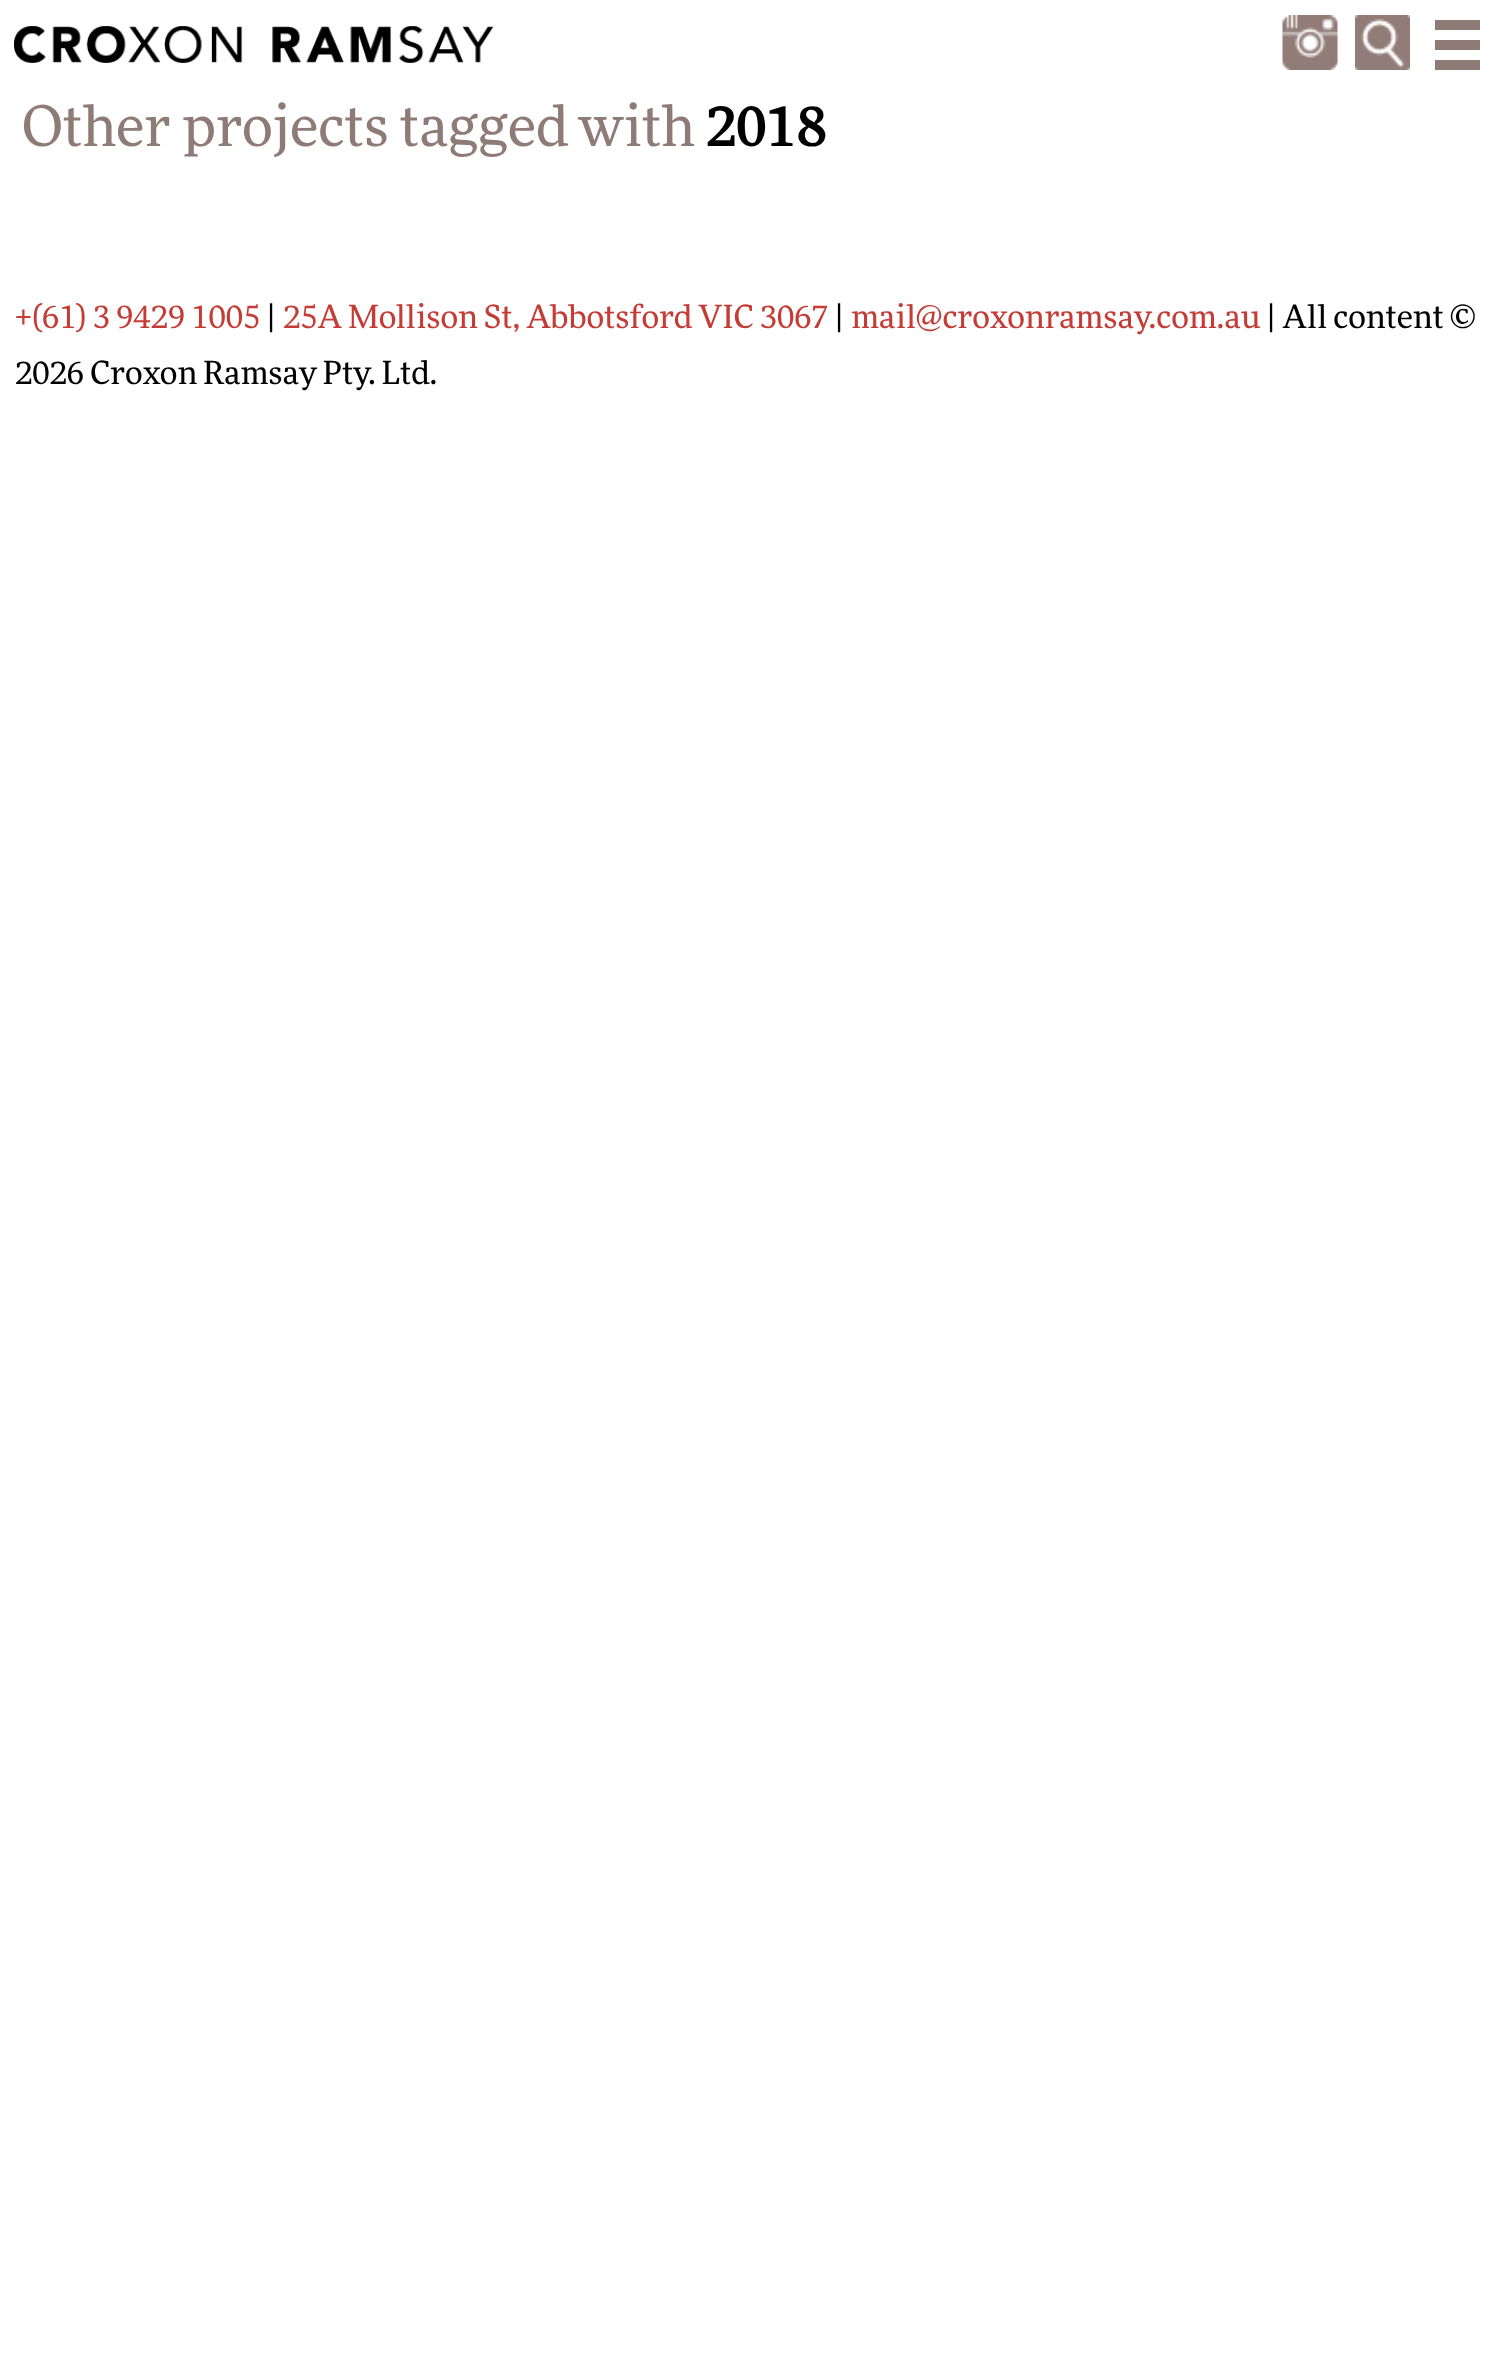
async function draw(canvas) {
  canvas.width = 1507
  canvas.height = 2366
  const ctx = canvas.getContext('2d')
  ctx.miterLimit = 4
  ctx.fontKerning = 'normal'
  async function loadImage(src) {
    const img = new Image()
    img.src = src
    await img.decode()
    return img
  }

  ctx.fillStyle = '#fff'
  ctx.fillRect(0, 0, 1507, 2366)
  ctx.drawImage(await loadImage('image0.png'), 14, 26, 480, 37)
  ctx.drawImage(await loadImage('image1.png'), 1282, 15, 56, 55)
  ctx.drawImage(await loadImage('image2.png'), 1355, 15, 55, 55)
  ctx.fillStyle = '#8f7b76'
  ctx.fillRect(1435, 20, 45, 10)
  ctx.fillRect(1435, 40, 45, 10)
  ctx.fillRect(1435, 60, 45, 10)
  ctx.font = '500 56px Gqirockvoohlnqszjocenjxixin'
  ctx.fillText('Other projects tagged with', 22, 146)
  ctx.font = '500 56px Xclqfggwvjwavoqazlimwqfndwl'
  ctx.fillStyle = '#000'
  ctx.fillText('2018', 706, 146)
  ctx.font = '500 32px Gqirockvoohlnqszjocenjxixin'
  ctx.fillStyle = '#c43c35'
  ctx.fillText('+(61) 3 9429 1005', 15, 328)
  ctx.fillStyle = '#000'
  ctx.fillText('|', 266, 328)
  ctx.fillStyle = '#c43c35'
  ctx.fillText('25A Mollison St, Abbotsford VIC 3067', 283, 328)
  ctx.fillStyle = '#000'
  ctx.fillText('|', 834, 328)
  ctx.fillStyle = '#c43c35'
  ctx.fillText('mail@croxonramsay.com.au', 851, 328)
  ctx.fillStyle = '#000'
  ctx.fillText('| All content ©', 1266, 328)
  ctx.fillText('2026 Croxon Ramsay Pty. Ltd.', 15, 384)
}

draw(document.querySelector('canvas'))
